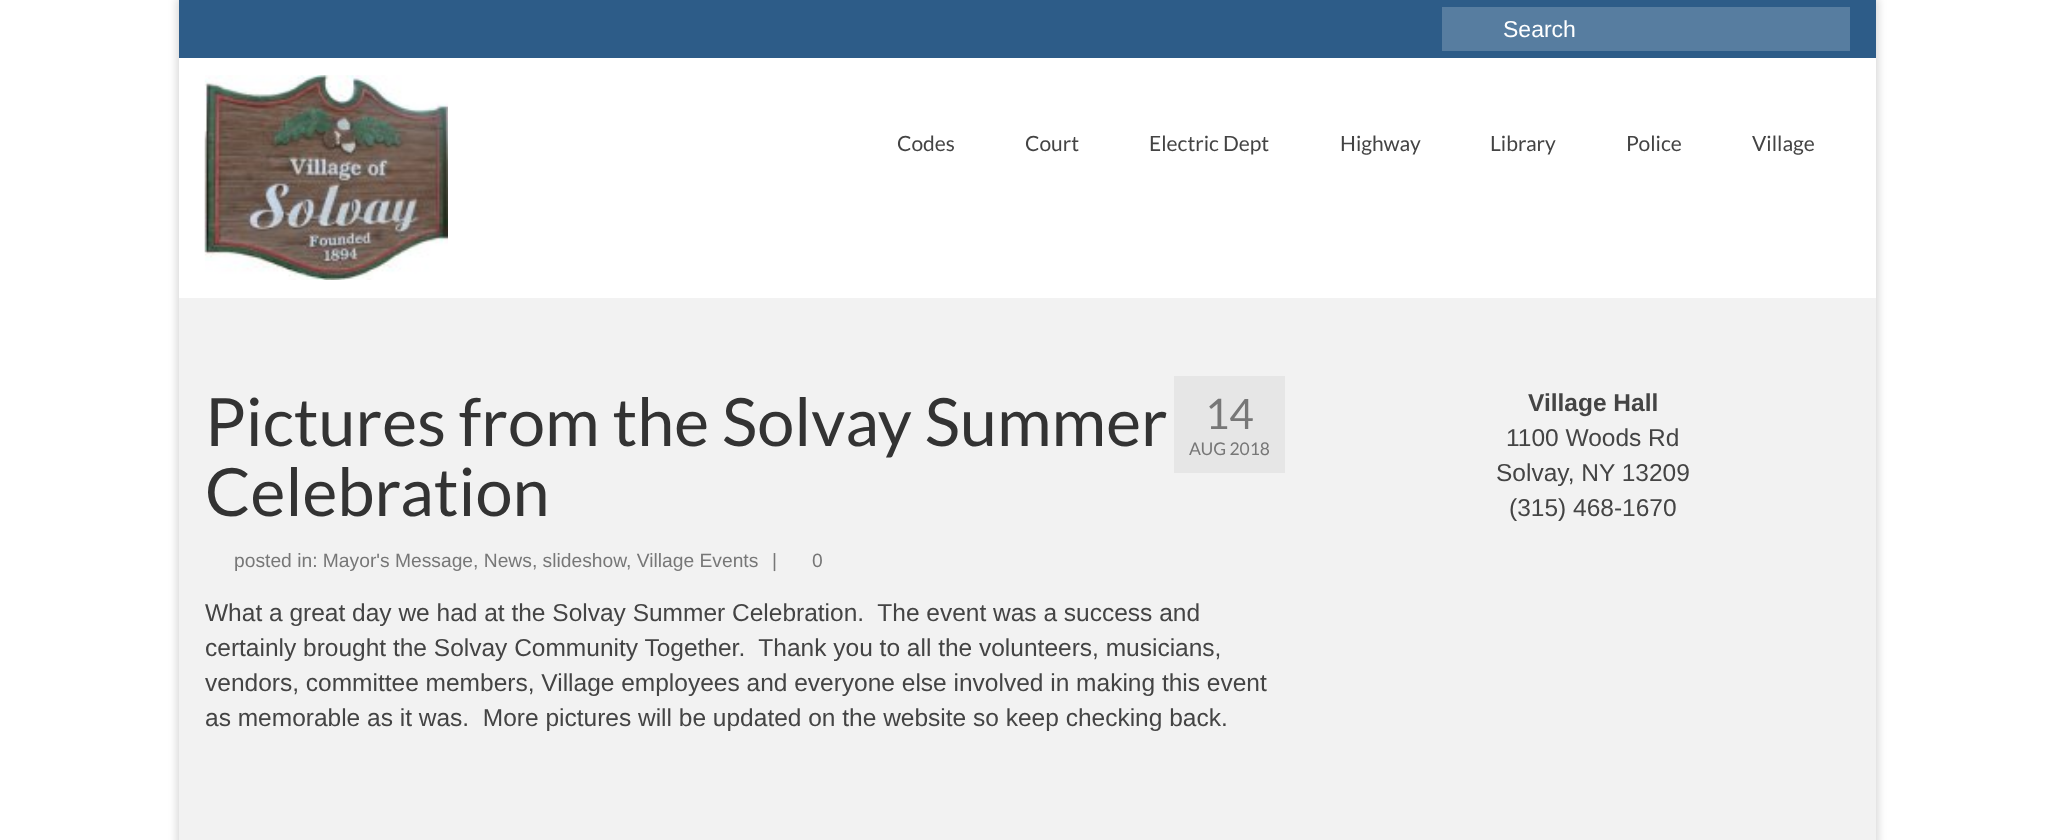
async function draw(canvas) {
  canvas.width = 2054
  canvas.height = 840
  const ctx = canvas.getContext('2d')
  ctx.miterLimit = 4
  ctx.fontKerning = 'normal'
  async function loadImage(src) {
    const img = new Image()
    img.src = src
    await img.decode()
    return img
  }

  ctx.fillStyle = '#fff'
  ctx.fillRect(0, 0, 2054, 840)
  ctx.save()
  ctx.beginPath()
  ctx.moveTo(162, 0)
  ctx.lineTo(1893, 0)
  ctx.lineTo(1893, 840)
  ctx.lineTo(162, 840)
  ctx.closePath()
  ctx.moveTo(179, 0)
  ctx.lineTo(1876, 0)
  ctx.lineTo(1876, 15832)
  ctx.lineTo(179, 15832)
  ctx.closePath()
  ctx.clip('evenodd')
  ctx.fillStyle = '#00000029'
  ctx.filter = 'blur(4.5px)'
  ctx.beginPath()
  ctx.rect(177, -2, 1701, 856)
  ctx.fill()
  ctx.filter = 'none'
  ctx.restore()
  ctx.fillStyle = '#2d5c88'
  ctx.fillRect(179, 0, 1697, 58)
  ctx.fillStyle = '#577da0'
  ctx.fillRect(1442, 7, 408, 44)
  ctx.font = '23px Liberation Sans'
  ctx.fillStyle = '#fff'
  ctx.fillText('Search', 1503, 37)
  ctx.drawImage(await loadImage('image0.png'), 204, 75, 244, 205)
  ctx.font = '21px Lato'
  ctx.fillStyle = '#444'
  ctx.fillText('Codes', 897, 151)
  ctx.fillText('Court', 1025, 151)
  ctx.fillText('Electric Dept', 1149, 151)
  ctx.fillText('Highway', 1340, 151)
  ctx.fillText('Library', 1490, 151)
  ctx.fillText('Police', 1626, 151)
  ctx.fillText('Village', 1752, 151)
  ctx.fillStyle = '#f2f2f2'
  ctx.fillRect(179, 298, 1697, 542)
  ctx.font = '66.5px Lato'
  ctx.fillStyle = '#333'
  ctx.fillText('Pictures from the Solvay Summer', 205, 446)
  ctx.fillText('Celebration', 205, 516)
  ctx.font = '19.25px Liberation Sans'
  ctx.fillStyle = '#777'
  ctx.fillText('posted in: Mayor\'s Message, News, slideshow', 234, 567)
  ctx.fillText(', Village Events', 626, 567)
  ctx.fillText('|', 772, 567)
  ctx.fillText('0', 812, 567)
  ctx.fillStyle = '#e6e6e6'
  ctx.fillRect(1174, 376, 111, 97)
  ctx.font = '42px Lato'
  ctx.fillStyle = '#777'
  ctx.fillText('14', 1205, 429)
  ctx.font = '17.5px Lato'
  ctx.fillText('AUG 2018', 1189, 455)
  ctx.font = '24.5px Liberation Sans'
  ctx.fillStyle = '#444'
  ctx.fillText('What a great day we had at the Solvay Summer Celebration.  The event was a success and', 205, 621)
  ctx.fillText('certainly brought the Solvay Community Together.  Thank you to all the volunteers, musicians,', 205, 656)
  ctx.fillText('vendors, committee members, Village employees and everyone else involved in making this event', 205, 691)
  ctx.fillText('as memorable as it was.  More pictures will be updated on the website so keep checking back.', 205, 726)
  ctx.font = 'bold 24.5px Liberation Sans'
  ctx.fillText('Village Hall', 1528, 411)
  ctx.font = '24.5px Liberation Sans'
  ctx.fillText('1100 Woods Rd', 1506, 446)
  ctx.fillText('Solvay, NY 13209', 1496, 481)
  ctx.fillText('(315) 468-1670', 1509, 516)
}

draw(document.querySelector('canvas'))
